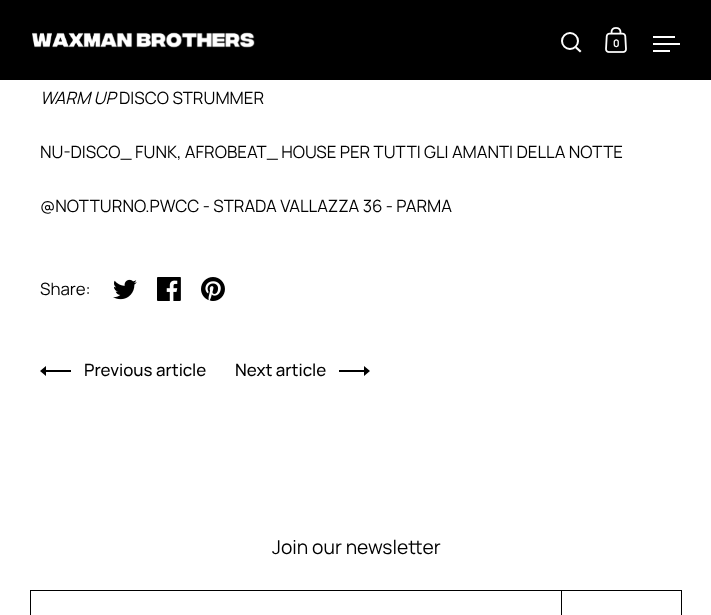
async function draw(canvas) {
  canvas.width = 711
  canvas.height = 615
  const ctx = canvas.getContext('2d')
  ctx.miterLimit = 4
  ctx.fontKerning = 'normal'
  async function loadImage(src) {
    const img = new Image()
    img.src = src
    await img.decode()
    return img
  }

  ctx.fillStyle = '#fff'
  ctx.fillRect(0, 0, 711, 615)
  ctx.fillStyle = '#000'
  ctx.fillRect(0, 0, 711, 80)
  ctx.drawImage(await loadImage('image0.png'), 32, 32, 223, 16)
  ctx.beginPath()
  ctx.arc(570, 41, 8, 0, 2 * Math.PI)
  ctx.strokeStyle = '#fff'
  ctx.lineWidth = 2
  ctx.stroke()
  ctx.fillStyle = '#fff'
  ctx.beginPath()
  ctx.moveTo(575, 48)
  ctx.lineTo(576.5, 46.5)
  ctx.lineTo(581.5, 51)
  ctx.lineTo(580, 52.5)
  ctx.closePath()
  ctx.fill()
  ctx.drawImage(await loadImage('image1.png'), 605, 27, 22, 26)
  ctx.font = 'bold 10px Manrope'
  ctx.fillText('0', 613, 47)
  ctx.fillRect(653, 36, 22, 2)
  ctx.fillRect(653, 43, 27, 2)
  ctx.fillRect(653, 50, 17, 2)
  ctx.font = 'italic 16.9px Manrope'
  ctx.fillStyle = '#000'
  ctx.fillText('WARM UP', 40, 104)
  ctx.font = '16.9px Manrope'
  ctx.fillText('DISCO STRUMMER', 119, 104)
  ctx.fillText('NU-DISCO_ FUNK, AFROBEAT_ HOUSE PER TUTTI GLI AMANTI DELLA NOTTE', 40, 158)
  ctx.fillText('@NOTTURNO.PWCC - STRADA VALLAZZA 36 - PARMA', 40, 212)
  ctx.fillText('Share:', 40, 295)
  ctx.drawImage(await loadImage('image2.png'), 113, 279, 24, 21)
  ctx.drawImage(await loadImage('image3.png'), 157, 277, 24, 24)
  ctx.drawImage(await loadImage('image4.png'), 201, 277, 24, 24)
  ctx.font = '500 16.9px Manrope'
  ctx.fillText('Previous article', 84, 376)
  ctx.beginPath()
  ctx.moveTo(40, 371)
  ctx.lineTo(46, 376)
  ctx.lineTo(46, 372)
  ctx.lineTo(71, 372)
  ctx.lineTo(71, 370)
  ctx.lineTo(46, 370)
  ctx.lineTo(46, 366)
  ctx.closePath()
  ctx.fill()
  ctx.fillText('Next article', 235, 376)
  ctx.beginPath()
  ctx.moveTo(370, 371)
  ctx.lineTo(364, 366)
  ctx.lineTo(364, 370)
  ctx.lineTo(339, 370)
  ctx.lineTo(339, 372)
  ctx.lineTo(364, 372)
  ctx.lineTo(364, 376)
  ctx.closePath()
  ctx.fill()
  ctx.font = '19.25px Manrope'
  ctx.fillText('Join our newsletter', 272, 554)
  ctx.strokeStyle = '#000'
  ctx.lineWidth = 1
  ctx.strokeRect(30.5, 590.5, 531, 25)
  ctx.strokeRect(561.5, 590.5, 120, 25)
}

draw(document.querySelector('canvas'))
